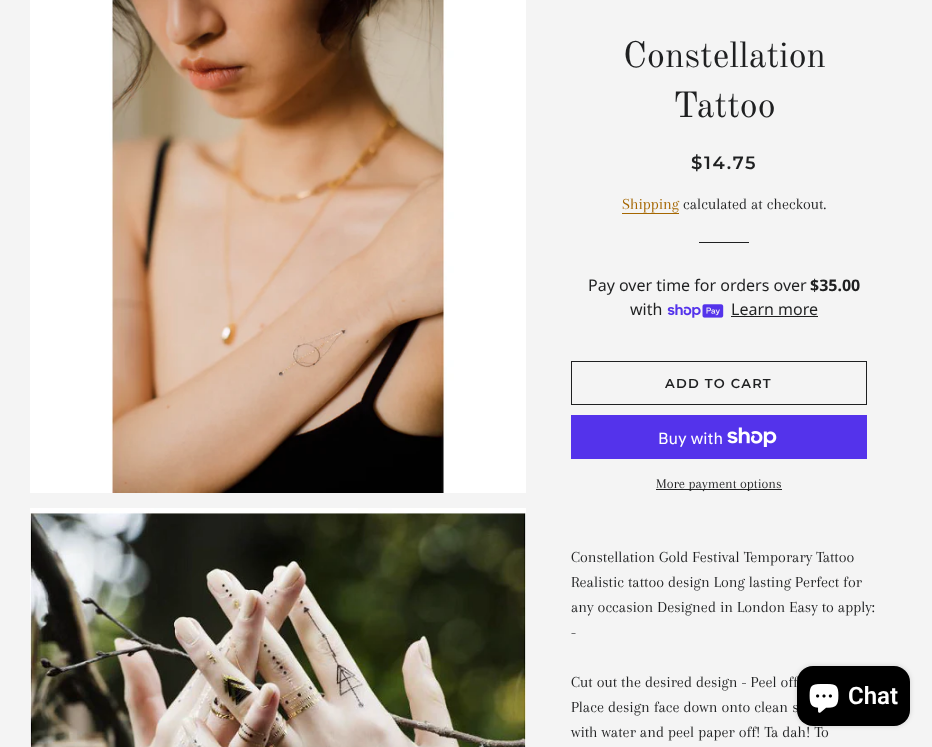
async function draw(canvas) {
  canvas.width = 932
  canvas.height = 747
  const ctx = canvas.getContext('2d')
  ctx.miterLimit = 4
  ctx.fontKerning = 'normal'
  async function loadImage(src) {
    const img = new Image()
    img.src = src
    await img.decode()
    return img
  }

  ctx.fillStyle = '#f4f4f4'
  ctx.fillRect(0, 0, 932, 747)
  ctx.drawImage(await loadImage('image0.png'), 30, 0, 496, 493)
  ctx.drawImage(await loadImage('image1.png'), 30, 508, 496, 239)
  ctx.font = '36px Old Standard TT'
  ctx.fillStyle = '#1f2021'
  ctx.fillText('Constellation', 623, 67)
  ctx.fillText('Tattoo', 673, 117)
  ctx.letterSpacing = '1.75px'
  ctx.font = '600 18px Montserrat'
  ctx.fillText('$14.75', 691, 169)
  ctx.letterSpacing = '0px'
  ctx.font = '16px Arapey'
  ctx.fillStyle = '#a56600'
  ctx.fillText('Shipping', 622, 209)
  ctx.fillRect(622, 213, 57, 1)
  ctx.fillStyle = '#1f2021'
  ctx.fillText('calculated at checkout.', 683, 209)
  ctx.fillRect(699, 242, 50, 1)
  ctx.font = '16px Noto Sans'
  ctx.fillText('Pay over time for orders over', 588, 291)
  ctx.font = 'bold 16px Noto Sans'
  ctx.fillText('$35.00', 810, 291)
  ctx.font = '16px Noto Sans'
  ctx.fillText('with', 630, 315)
  ctx.drawImage(await loadImage('image2.png'), 667, 304, 57, 14)
  ctx.fillText('Learn more', 731, 315)
  ctx.fillRect(731, 316, 87, 1)
  ctx.strokeStyle = '#1f2021'
  ctx.strokeRect(571.5, 361.5, 295, 43)
  ctx.letterSpacing = '1.25px'
  ctx.font = '600 13px Montserrat'
  ctx.fillText('ADD TO CART', 665, 388)
  ctx.fillStyle = '#5433eb'
  ctx.fillRect(571, 415, 296, 44)
  ctx.letterSpacing = '0px'
  ctx.font = '16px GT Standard'
  ctx.fillStyle = '#fff'
  ctx.fillText('Buy with', 658, 444)
  ctx.drawImage(await loadImage('image3.png'), 727, 427, 50, 20)
  ctx.fillStyle = '#1f2021'
  ctx.fillRect(656, 489, 126, 1)
  ctx.font = '14px Arapey'
  ctx.fillText('More payment options', 656, 488)
  ctx.font = '16px Arapey'
  ctx.fillText('Constellation Gold Festival Temporary Tattoo', 571, 562)
  ctx.fillText('Realistic tattoo design Long lasting Perfect for', 571, 587)
  ctx.fillText('any occasion Designed in London Easy to apply:', 571, 612)
  ctx.fillText('-', 571, 637)
  ctx.fillText('Cut out the desired design - Peel off', 571, 687)
  ctx.fillText('Place design face down onto clean s', 571, 712)
  ctx.fillText('with water and peel paper off! Ta dah! To', 571, 737)
  ctx.fillStyle = '#00000026'
  ctx.filter = 'blur(2.5px)'
  ctx.beginPath()
  ctx.roundRect(797, 666, 113, 60, 16)
  ctx.fill()
  ctx.filter = 'none'
  ctx.fillStyle = '#000'
  ctx.beginPath()
  ctx.roundRect(797, 666, 113, 60, 16)
  ctx.fill()
  ctx.drawImage(await loadImage('image4.png'), 809, 684, 30, 29)
  ctx.font = '600 24px Roboto'
  ctx.fillStyle = '#fff'
  ctx.fillText('Chat', 848, 704)
}

draw(document.querySelector('canvas'))
